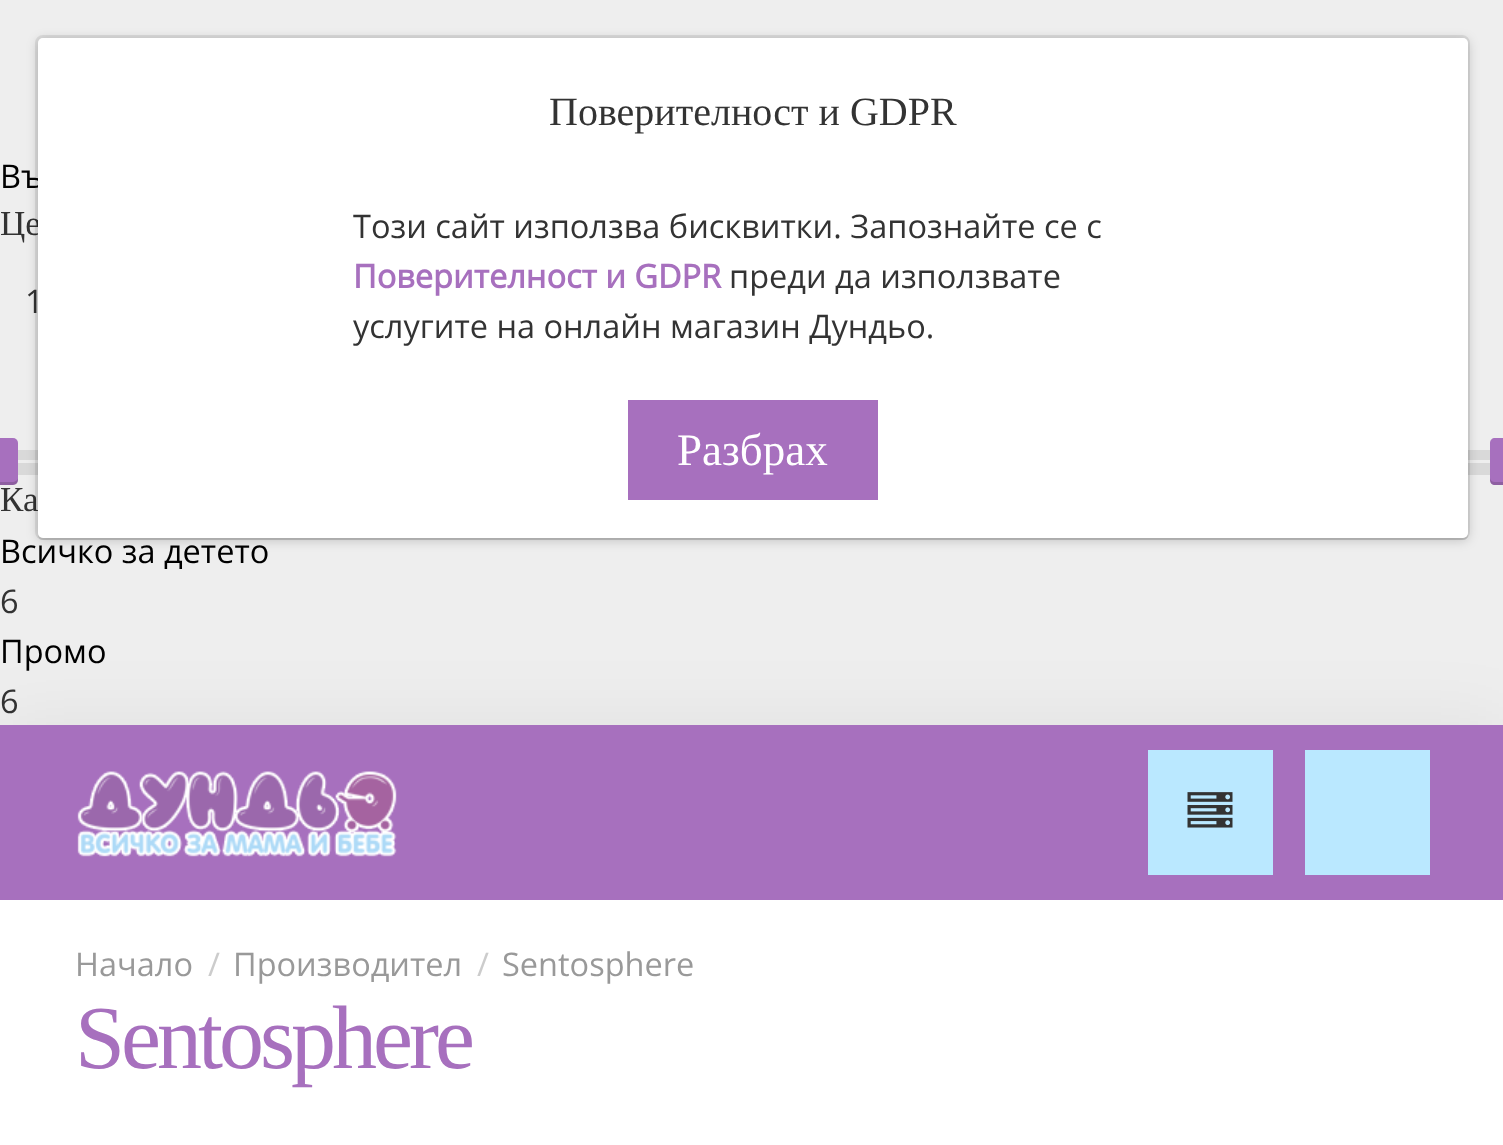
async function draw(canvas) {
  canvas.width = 1503
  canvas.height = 1145
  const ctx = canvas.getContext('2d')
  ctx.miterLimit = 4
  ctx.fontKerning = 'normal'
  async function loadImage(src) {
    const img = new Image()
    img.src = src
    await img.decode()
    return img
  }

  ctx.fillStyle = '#eee'
  ctx.fillRect(0, 0, 1503, 1145)
  ctx.font = '32.5px Open Sans'
  ctx.fillStyle = '#000'
  ctx.fillText('Въ', 0, 188)
  ctx.font = '35px Liberation Serif'
  ctx.fillStyle = '#333'
  ctx.fillText('Це', 0, 235)
  ctx.font = '32.5px Open Sans'
  ctx.fillText('1', 25, 313)
  ctx.fillStyle = '#a770be'
  ctx.beginPath()
  ctx.roundRect(0, 438, 18, 47, [0, 5, 5, 0])
  ctx.fill()
  ctx.fillStyle = '#00000026'
  ctx.beginPath()
  ctx.moveTo(-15, 478)
  ctx.bezierCurveTo(-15, 485, -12.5, 485, -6, 485)
  ctx.lineTo(9, 485)
  ctx.bezierCurveTo(15.5, 485, 18, 485, 18, 478)
  ctx.bezierCurveTo(18, 480, 15, 482, 12, 482)
  ctx.lineTo(-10, 482)
  ctx.bezierCurveTo(-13, 482, -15, 480, -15, 478)
  ctx.closePath()
  ctx.fill()
  ctx.fillStyle = '#d9d9d9'
  ctx.fillRect(18, 450, 1472, 10)
  ctx.fillRect(18, 463, 1472, 12)
  ctx.fillStyle = '#a770be'
  ctx.beginPath()
  ctx.moveTo(1495, 438)
  ctx.lineTo(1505, 438)
  ctx.lineTo(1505, 485)
  ctx.lineTo(1495, 485)
  ctx.bezierCurveTo(1492, 485, 1490, 483, 1490, 480)
  ctx.lineTo(1490, 443)
  ctx.bezierCurveTo(1490, 440, 1492, 438, 1495, 438)
  ctx.closePath()
  ctx.fill()
  ctx.fillStyle = '#00000026'
  ctx.beginPath()
  ctx.moveTo(1490, 478)
  ctx.lineTo(1490, 480)
  ctx.bezierCurveTo(1490, 483, 1492, 485, 1495, 485)
  ctx.lineTo(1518, 485)
  ctx.bezierCurveTo(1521, 485, 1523, 483, 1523, 480)
  ctx.lineTo(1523, 443)
  ctx.bezierCurveTo(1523, 442, 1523, 441, 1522, 440)
  ctx.lineTo(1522, 478)
  ctx.bezierCurveTo(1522, 480, 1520, 482, 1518, 482)
  ctx.lineTo(1495, 482)
  ctx.bezierCurveTo(1492, 482, 1490, 480, 1490, 478)
  ctx.closePath()
  ctx.fill()
  ctx.font = '35px Liberation Serif'
  ctx.fillStyle = '#333'
  ctx.fillText('Ка', 0, 511)
  ctx.font = '32.5px Open Sans'
  ctx.fillStyle = '#000'
  ctx.fillText('Всичко за детето', 0, 563)
  ctx.fillStyle = '#333'
  ctx.fillText('6', 0, 613)
  ctx.fillStyle = '#000'
  ctx.fillText('Промо', 0, 663)
  ctx.fillStyle = '#333'
  ctx.fillText('6', 0, 713)
  ctx.fillStyle = '#00000033'
  ctx.filter = 'blur(6px)'
  ctx.beginPath()
  ctx.roundRect(38, 40, 1430, 500, 5)
  ctx.fill()
  ctx.filter = 'none'
  ctx.beginPath()
  ctx.roundRect(36.5, 36.5, 1432, 502, 6.5)
  ctx.strokeStyle = '#00000014'
  ctx.lineWidth = 3
  ctx.stroke()
  ctx.fillStyle = '#0000001a'
  ctx.beginPath()
  ctx.moveTo(38, 535)
  ctx.bezierCurveTo(38, 538, 40, 540, 43, 540)
  ctx.lineTo(1463, 540)
  ctx.bezierCurveTo(1466, 540, 1468, 538, 1468, 535)
  ctx.lineTo(1468, 45)
  ctx.lineTo(1468, 43)
  ctx.lineTo(1468, 532)
  ctx.bezierCurveTo(1468, 535, 1465, 538, 1462, 538)
  ctx.lineTo(42, 538)
  ctx.bezierCurveTo(41, 538, 39, 536, 38, 535)
  ctx.closePath()
  ctx.fill()
  ctx.fillStyle = '#fff'
  ctx.beginPath()
  ctx.roundRect(38, 38, 1430, 500, 5)
  ctx.fill()
  ctx.font = '40px Liberation Serif'
  ctx.fillStyle = '#333'
  ctx.fillText('Поверителност и GDPR', 549, 125)
  ctx.font = '32.5px Open Sans'
  ctx.fillText('Този сайт използва бисквитки. Запознайте се с', 353, 238)
  ctx.font = 'bold 32.5px Open Sans'
  ctx.fillStyle = '#a770be'
  ctx.fillText('Поверителност и GDPR', 353, 288)
  ctx.font = '32.5px Open Sans'
  ctx.fillStyle = '#333'
  ctx.fillText('преди да използвате', 729, 288)
  ctx.fillText('услугите на онлайн магазин Дундьо.', 353, 338)
  ctx.fillStyle = '#a770be'
  ctx.fillRect(628, 400, 250, 100)
  ctx.font = '45px Liberation Serif'
  ctx.fillStyle = '#fff'
  ctx.fillText('Разбрах', 677, 465)
  ctx.fillStyle = '#0000000f'
  ctx.filter = 'blur(37.5px)'
  ctx.beginPath()
  ctx.rect(0, 725, 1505, 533)
  ctx.fill()
  ctx.filter = 'none'
  ctx.fillStyle = '#fff'
  ctx.fillRect(0, 900, 1503, 245)
  ctx.fillStyle = '#a770be'
  ctx.fillRect(0, 725, 1503, 175)
  ctx.drawImage(await loadImage('image0.png'), 77, 771, 320, 86)
  ctx.fillStyle = '#bae8ff'
  ctx.fillRect(1148, 750, 125, 125)
  ctx.drawImage(await loadImage('image1.png'), 1187, 792, 46, 36)
  ctx.fillRect(1305, 750, 125, 125)
  ctx.font = '32.5px Open Sans'
  ctx.fillStyle = '#999'
  ctx.fillText('Начало', 75, 976)
  ctx.fillStyle = '#ccc'
  ctx.fillText('/', 208, 976)
  ctx.fillStyle = '#999'
  ctx.fillText('Производител', 233, 976)
  ctx.fillStyle = '#ccc'
  ctx.fillText('/', 477, 976)
  ctx.fillStyle = '#999'
  ctx.fillText('Sentosphere', 502, 976)
  ctx.letterSpacing = '-4px'
  ctx.font = '90px Liberation Serif'
  ctx.fillStyle = '#a770be'
  ctx.fillText('Sentosphere', 75, 1068)
}

draw(document.querySelector('canvas'))
